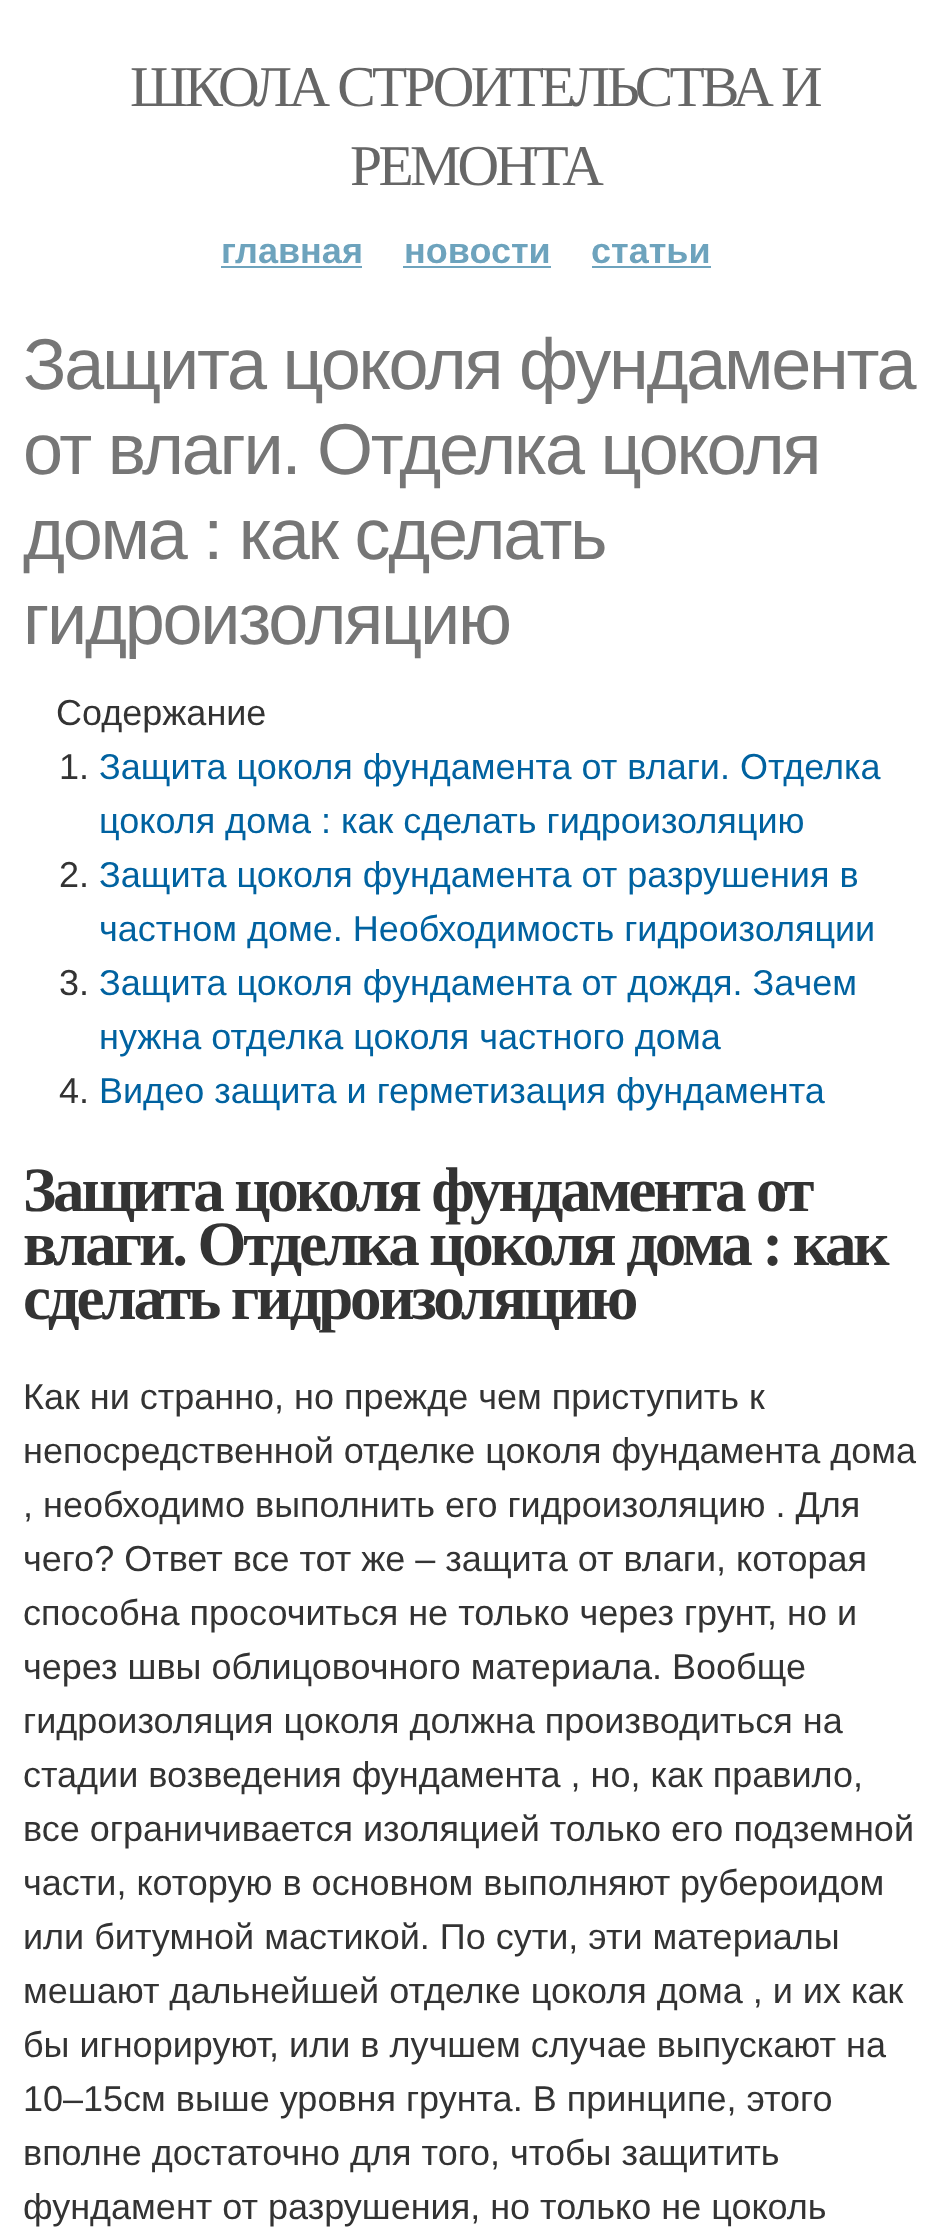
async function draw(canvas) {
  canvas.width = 948
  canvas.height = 2237
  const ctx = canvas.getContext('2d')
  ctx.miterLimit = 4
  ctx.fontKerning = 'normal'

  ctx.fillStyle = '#fff'
  ctx.fillRect(0, 0, 948, 2237)
  ctx.letterSpacing = '-3.6px'
  ctx.font = '57.6px Liberation Serif'
  ctx.fillStyle = '#666'
  ctx.fillText('ШКОЛА СТРОИТЕЛЬСТВА И', 130, 106)
  ctx.fillText('РЕМОНТА', 350, 185)
  ctx.letterSpacing = '0px'
  ctx.font = 'bold 36px Liberation Sans'
  ctx.fillStyle = '#6da3bd'
  ctx.fillText('главная', 221, 263)
  ctx.fillRect(221, 266, 141, 2)
  ctx.fillText('новости', 404, 263)
  ctx.fillRect(403, 266, 148, 2)
  ctx.fillText('статьи', 591, 263)
  ctx.fillRect(592, 266, 119, 2)
  ctx.letterSpacing = '-2.25px'
  ctx.font = '72px Liberation Sans'
  ctx.fillStyle = '#767676'
  ctx.fillText('Защита цоколя фундамента', 23, 389)
  ctx.fillText('от влаги. Отделка цоколя', 23, 474)
  ctx.fillText('дома : как сделать', 23, 559)
  ctx.fillText('гидроизоляцию', 23, 644)
  ctx.letterSpacing = '0px'
  ctx.font = '36px Liberation Sans'
  ctx.fillStyle = '#333'
  ctx.fillText('Содержание', 56, 725)
  ctx.fillText('1.', 59, 779)
  ctx.fillStyle = '#0062a0'
  ctx.fillText('Защита цоколя фундамента от влаги. Отделка', 99, 779)
  ctx.fillText('цоколя дома : как сделать гидроизоляцию', 99, 833)
  ctx.fillStyle = '#333'
  ctx.fillText('2.', 59, 887)
  ctx.fillStyle = '#0062a0'
  ctx.fillText('Защита цоколя фундамента от разрушения в', 99, 887)
  ctx.fillText('частном доме. Необходимость гидроизоляции', 99, 941)
  ctx.fillStyle = '#333'
  ctx.fillText('3.', 59, 995)
  ctx.fillStyle = '#0062a0'
  ctx.fillText('Защита цоколя фундамента от дождя. Зачем', 99, 995)
  ctx.fillText('нужна отделка цоколя частного дома', 99, 1049)
  ctx.fillStyle = '#333'
  ctx.fillText('4.', 59, 1103)
  ctx.fillStyle = '#0062a0'
  ctx.fillText('Видео защита и герметизация фундамента', 99, 1103)
  ctx.letterSpacing = '-3.15px'
  ctx.font = 'bold 63px Liberation Serif'
  ctx.fillStyle = '#333'
  ctx.fillText('Защита цоколя фундамента от', 23, 1211)
  ctx.fillText('влаги. Отделка цоколя дома : как', 23, 1265)
  ctx.fillText('сделать гидроизоляцию', 23, 1319)
  ctx.letterSpacing = '0px'
  ctx.font = '36px Liberation Sans'
  ctx.fillText('Как ни странно, но прежде чем приступить к', 23, 1409)
  ctx.fillText('непосредственной отделке цоколя фундамента дома', 23, 1463)
  ctx.fillText(', необходимо выполнить его гидроизоляцию . Для', 23, 1517)
  ctx.fillText('чего? Ответ все тот же – защита от влаги, которая', 23, 1571)
  ctx.fillText('способна просочиться не только через грунт, но и', 23, 1625)
  ctx.fillText('через швы облицовочного материала. Вообще', 23, 1679)
  ctx.fillText('гидроизоляция цоколя должна производиться на', 23, 1733)
  ctx.fillText('стадии возведения фундамента , но, как правило,', 23, 1787)
  ctx.fillText('все ограничивается изоляцией только его подземной', 23, 1841)
  ctx.fillText('части, которую в основном выполняют рубероидом', 23, 1895)
  ctx.fillText('или битумной мастикой. По сути, эти материалы', 23, 1949)
  ctx.fillText('мешают дальнейшей отделке цоколя дома , и их как', 23, 2003)
  ctx.fillText('бы игнорируют, или в лучшем случае выпускают на', 23, 2057)
  ctx.fillText('10–15см выше уровня грунта. В принципе, этого', 23, 2111)
  ctx.fillText('вполне достаточно для того, чтобы защитить', 23, 2165)
  ctx.fillText('фундамент от разрушения, но только не цоколь', 23, 2219)
}

draw(document.querySelector('canvas'))
